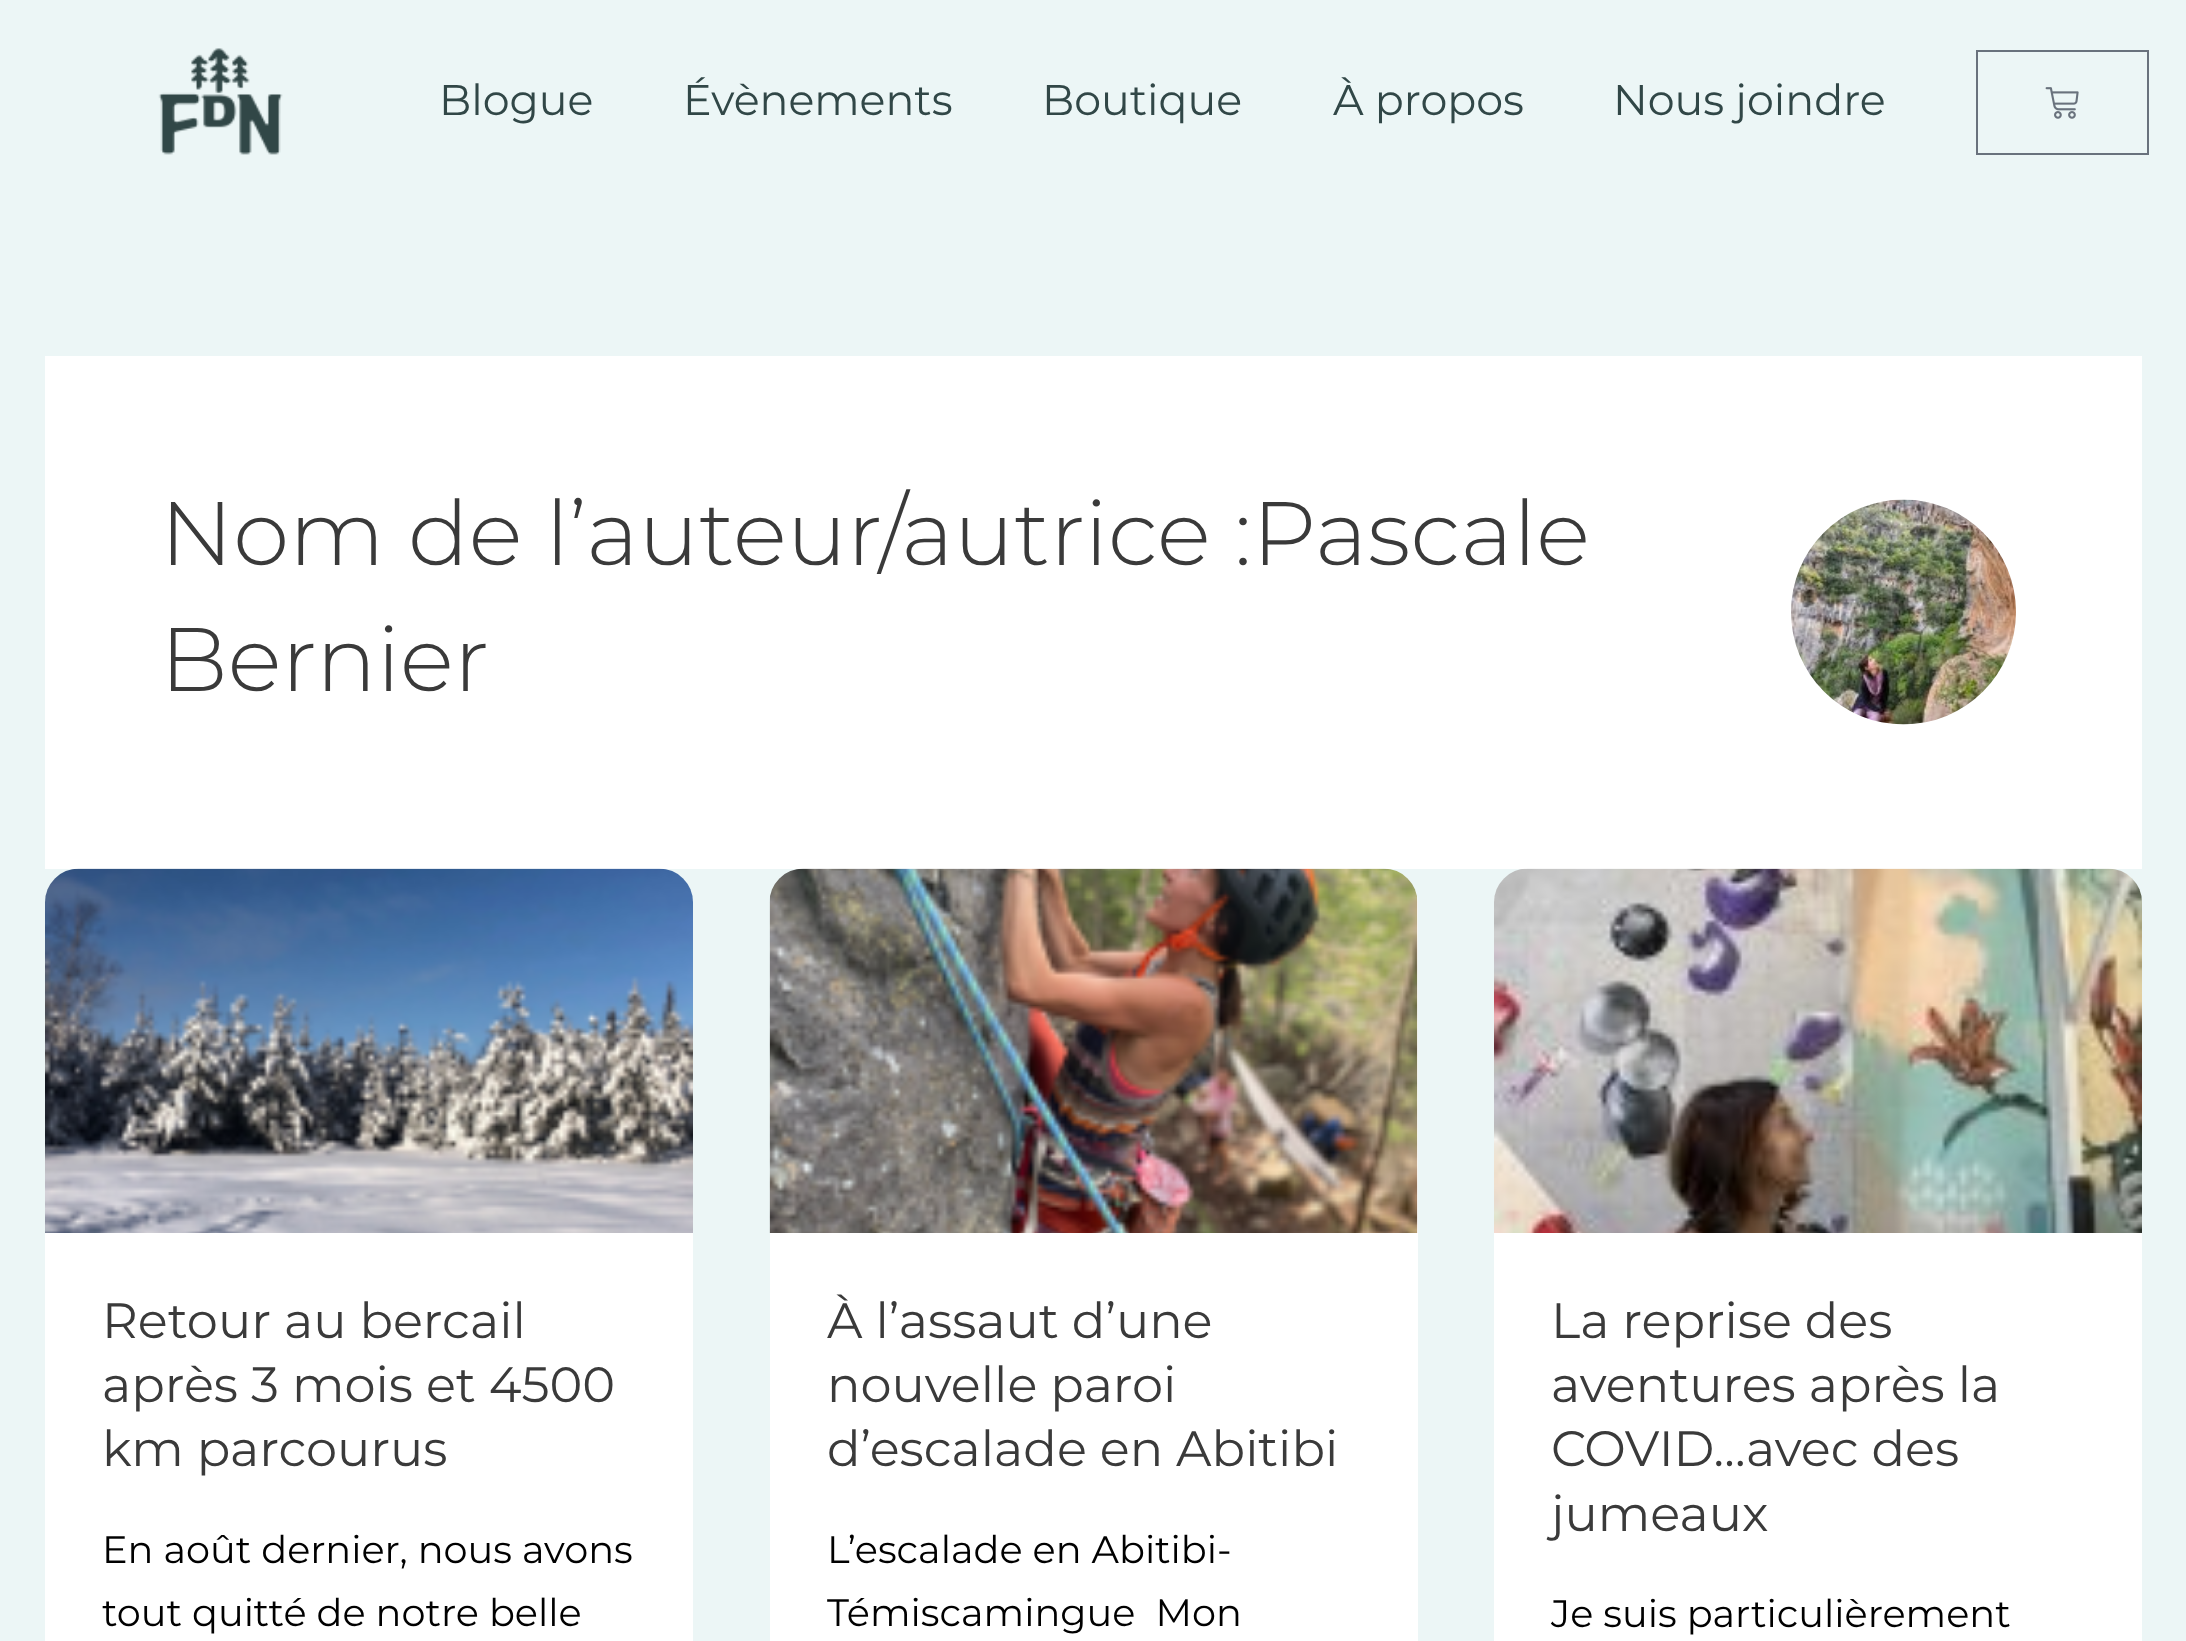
async function draw(canvas) {
  canvas.width = 2186
  canvas.height = 1641
  const ctx = canvas.getContext('2d')
  ctx.miterLimit = 4
  ctx.fontKerning = 'normal'
  async function loadImage(src) {
    const img = new Image()
    img.src = src
    await img.decode()
    return img
  }

  ctx.fillStyle = '#ecf6f6'
  ctx.fillRect(0, 0, 2186, 1641)
  ctx.drawImage(await loadImage('image0.png'), 158, 48, 125, 107)
  ctx.font = '42.75px Montserrat'
  ctx.fillStyle = '#314747'
  ctx.fillText('Blogue', 439, 115)
  ctx.fillText('Évènements', 683, 115)
  ctx.fillText('Boutique', 1042, 115)
  ctx.fillText('À propos', 1333, 115)
  ctx.fillText('Nous joindre', 1613, 115)
  ctx.strokeStyle = '#69727d'
  ctx.lineWidth = 2
  ctx.strokeRect(1977, 51, 171, 103)
  ctx.drawImage(await loadImage('image1.png'), 2045, 87, 34, 32)
  ctx.fillStyle = '#fff'
  ctx.fillRect(45, 356, 2097, 513)
  ctx.font = '300 90px Montserrat'
  ctx.fillStyle = '#3a3a3a'
  ctx.fillText('Nom de l’auteur/autrice :Pascale', 160, 565)
  ctx.fillText('Bernier', 160, 691)
  ctx.drawImage(await loadImage('image2.png'), 1791, 499, 225, 226)
  ctx.fillStyle = '#fff'
  ctx.beginPath()
  ctx.roundRect(45, 869, 648, 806, 34)
  ctx.fill()
  ctx.drawImage(await loadImage('image3.png'), 45, 868, 648, 365)
  ctx.font = '49.5px Montserrat'
  ctx.fillStyle = '#3a3a3a'
  ctx.fillText('Retour au bercail', 102, 1338)
  ctx.fillText('après 3 mois et 4500', 102, 1402)
  ctx.fillText('km parcourus', 102, 1466)
  ctx.font = '38.25px Montserrat'
  ctx.fillStyle = '#000'
  ctx.fillText('En août dernier, nous avons', 102, 1563)
  ctx.fillText('tout quitté de notre belle', 102, 1626)
  ctx.fillStyle = '#fff'
  ctx.beginPath()
  ctx.roundRect(770, 869, 648, 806, 34)
  ctx.fill()
  ctx.drawImage(await loadImage('image4.png'), 769, 868, 649, 365)
  ctx.font = '49.5px Montserrat'
  ctx.fillStyle = '#3a3a3a'
  ctx.fillText('À l’assaut d’une', 827, 1338)
  ctx.fillText('nouvelle paroi', 827, 1402)
  ctx.fillText('d’escalade en Abitibi', 827, 1466)
  ctx.font = '38.25px Montserrat'
  ctx.fillStyle = '#000'
  ctx.fillText('L’escalade en Abitibi-', 827, 1563)
  ctx.fillText('Témiscamingue  Mon', 827, 1626)
  ctx.fillStyle = '#fff'
  ctx.beginPath()
  ctx.roundRect(1494, 869, 648, 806, 34)
  ctx.fill()
  ctx.drawImage(await loadImage('image5.png'), 1494, 868, 648, 365)
  ctx.font = '49.5px Montserrat'
  ctx.fillStyle = '#3a3a3a'
  ctx.fillText('La reprise des', 1551, 1338)
  ctx.fillText('aventures après la', 1551, 1402)
  ctx.fillText('COVID…avec des', 1551, 1466)
  ctx.fillText('jumeaux', 1551, 1531)
  ctx.font = '38.25px Montserrat'
  ctx.fillStyle = '#000'
  ctx.fillText('Je suis particulièrement', 1551, 1627)
}

draw(document.querySelector('canvas'))
